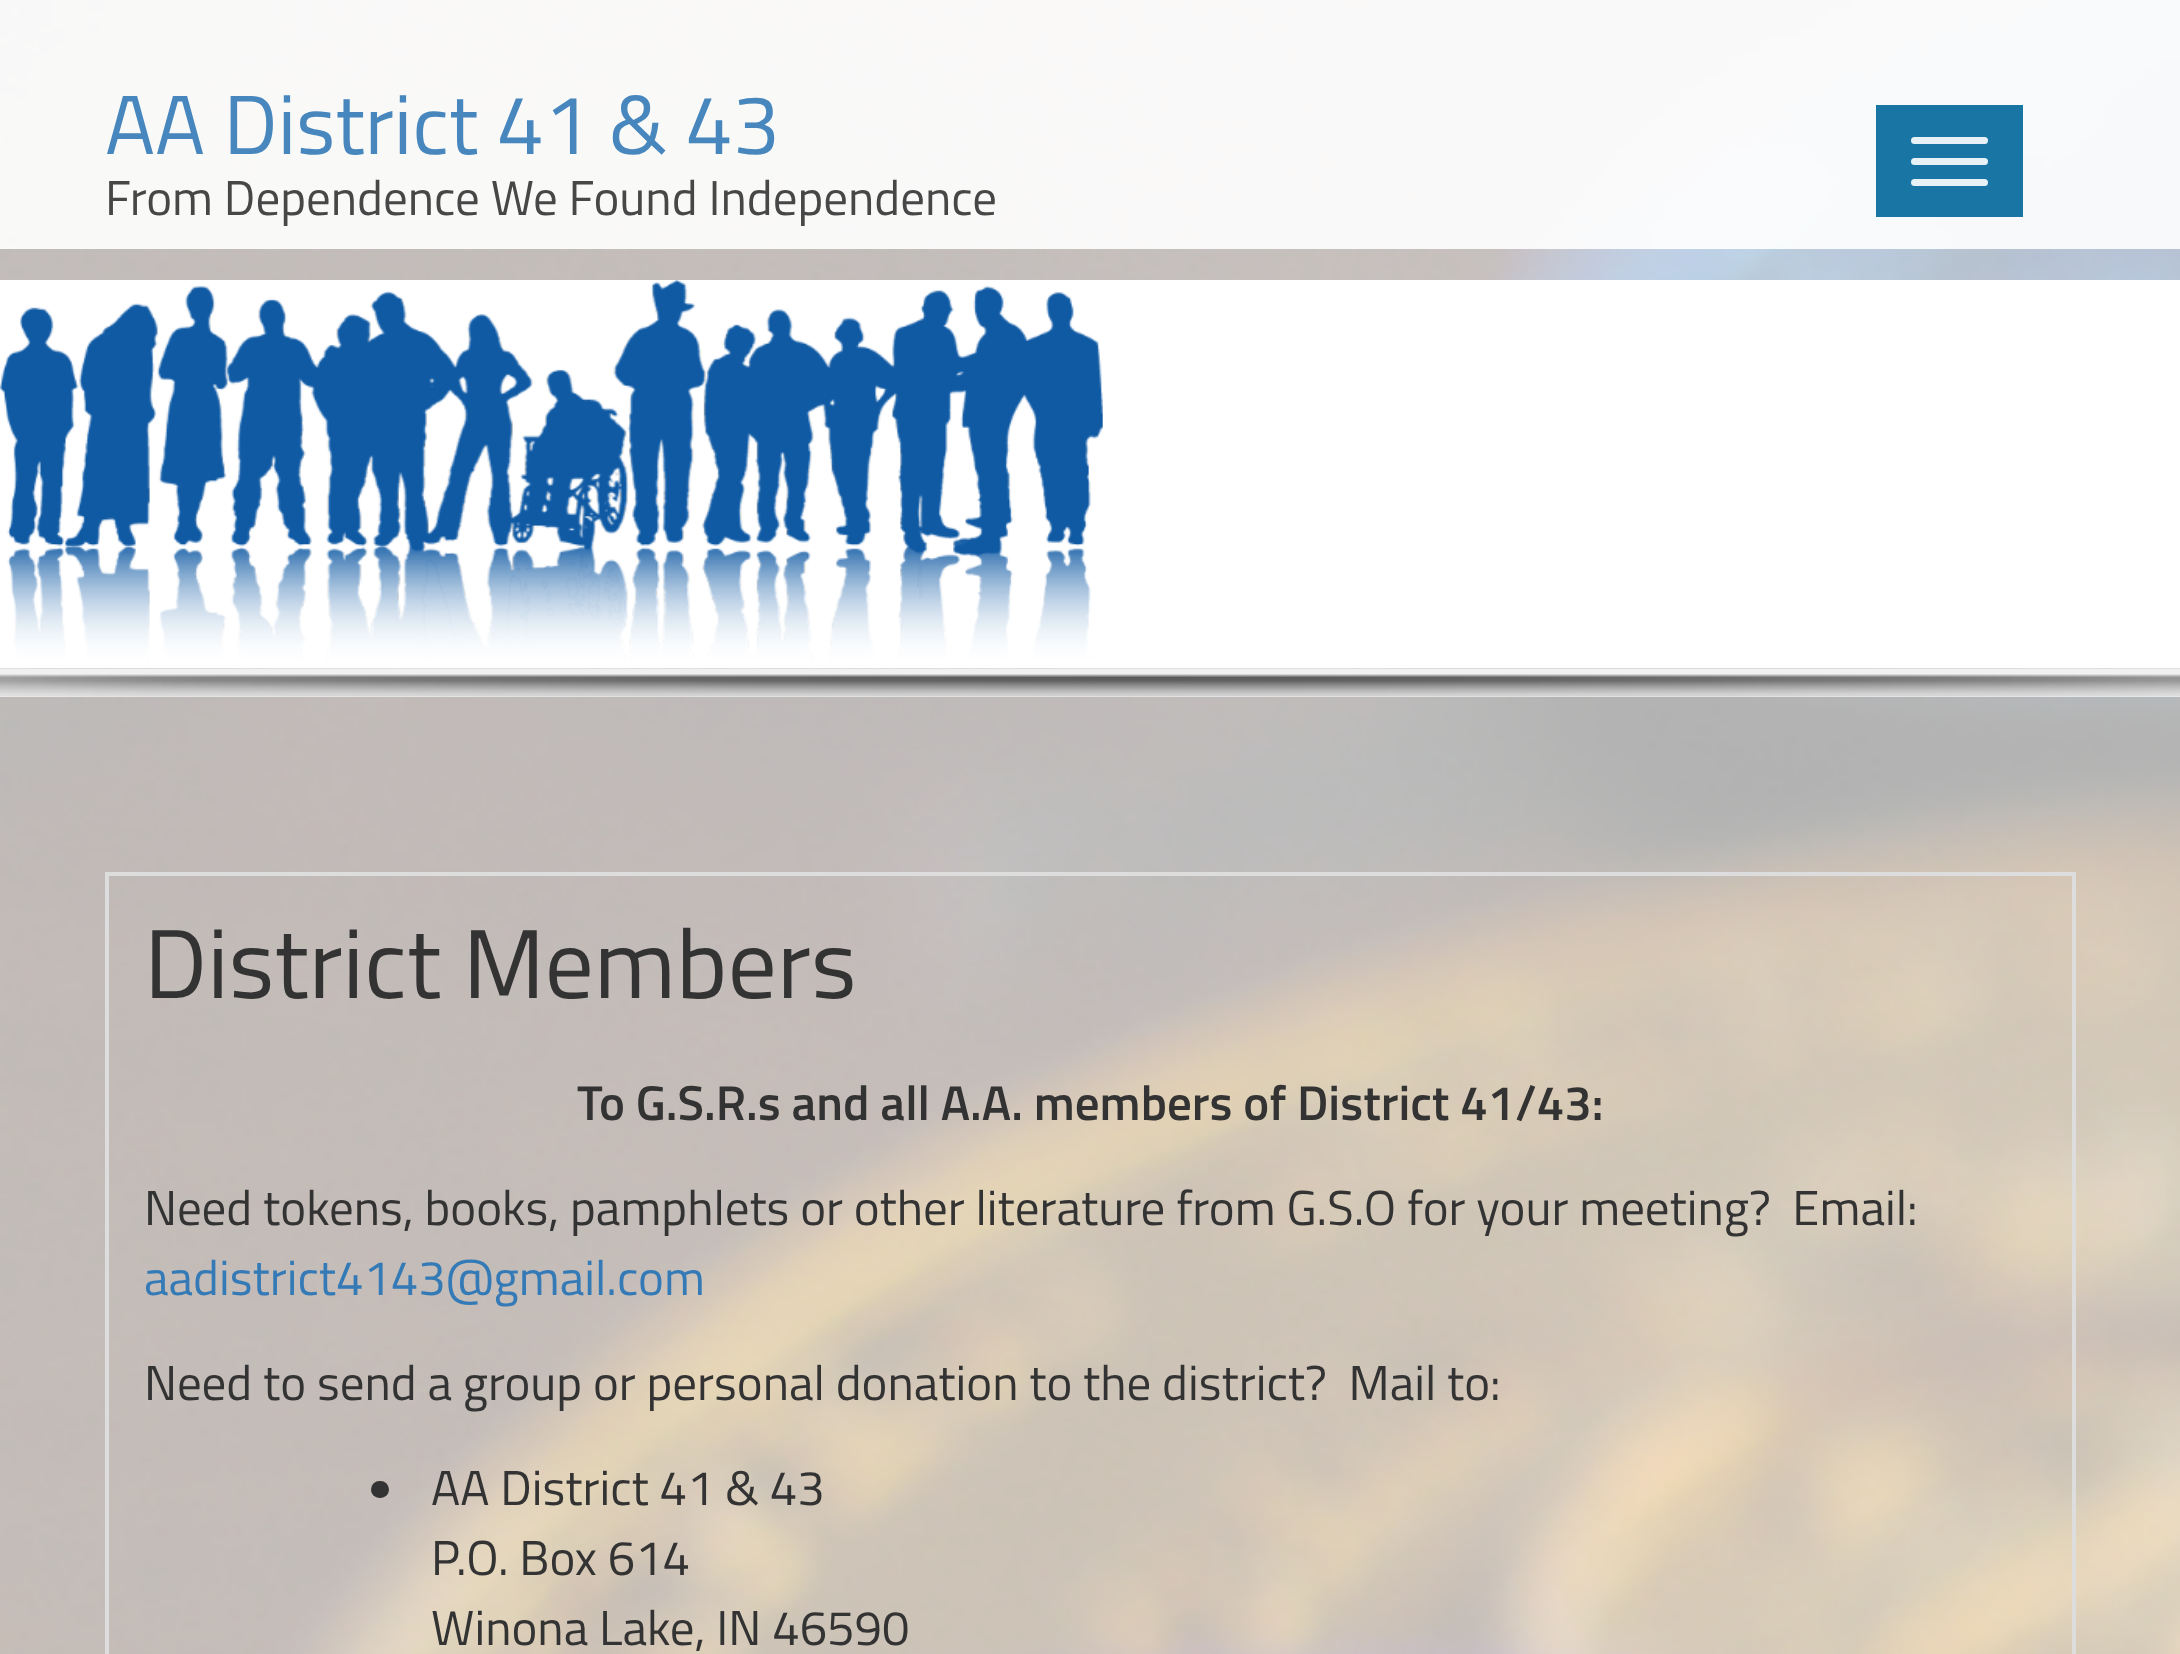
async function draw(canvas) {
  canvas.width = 2180
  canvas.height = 1654
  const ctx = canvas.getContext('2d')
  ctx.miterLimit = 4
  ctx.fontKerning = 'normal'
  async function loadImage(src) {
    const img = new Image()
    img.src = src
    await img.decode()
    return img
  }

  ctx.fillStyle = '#fff'
  ctx.fillRect(0, 0, 2180, 1654)
  ctx.drawImage(await loadImage('image0.png'), 0, 0, 2180, 1654)
  ctx.fillStyle = '#ffffffe6'
  ctx.fillRect(0, 0, 2180, 249)
  ctx.font = '84px Titillium Web'
  ctx.fillStyle = '#4787be'
  ctx.fillText('AA District 41 & 43', 105, 154)
  ctx.font = '49px Titillium Web'
  ctx.fillStyle = '#474747'
  ctx.fillText('From Dependence We Found Independence', 105, 215)
  ctx.fillStyle = '#1975a3'
  ctx.fillRect(1876, 105, 147, 112)
  ctx.fillStyle = '#e8f1f6'
  ctx.beginPath()
  ctx.roundRect(1911, 137, 77, 7, 3.5)
  ctx.fill()
  ctx.beginPath()
  ctx.roundRect(1911, 158, 77, 7, 3.5)
  ctx.fill()
  ctx.beginPath()
  ctx.roundRect(1911, 179, 77, 7, 3.5)
  ctx.fill()
  ctx.drawImage(await loadImage('image1.png'), 0, 280, 2180, 389)
  ctx.fillStyle = '#f1f1f1'
  ctx.fillRect(0, 669, 2180, 28)
  ctx.drawImage(await loadImage('image2.png'), 0, 674, 2180, 23)
  ctx.strokeStyle = '#ddd'
  ctx.lineWidth = 4
  ctx.strokeRect(107, 874, 1967, 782)
  ctx.font = '98px Titillium Web'
  ctx.fillStyle = '#333'
  ctx.fillText('District Members', 144, 998)
  ctx.font = '600 49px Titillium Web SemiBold'
  ctx.fillText('To G.S.R.s and all A.A. members of District 41/43:', 577, 1120)
  ctx.font = '49px Titillium Web'
  ctx.fillText('Need tokens, books, pamphlets or other literature from G.S.O for your meeting?  Email:', 144, 1225)
  ctx.fillStyle = '#337ab7'
  ctx.fillText('aadistrict4143@gmail.com', 144, 1295)
  ctx.fillStyle = '#333'
  ctx.fillText('Need to send a group or personal donation to the district?  Mail to:', 144, 1400)
  ctx.beginPath()
  ctx.roundRect(371, 1481, 18, 17, 8.5)
  ctx.fill()
  ctx.fillText('AA District 41 & 43', 431, 1505)
  ctx.fillText('P.O. Box 614', 431, 1575)
  ctx.fillText('Winona Lake, IN 46590', 431, 1645)
}

draw(document.querySelector('canvas'))
